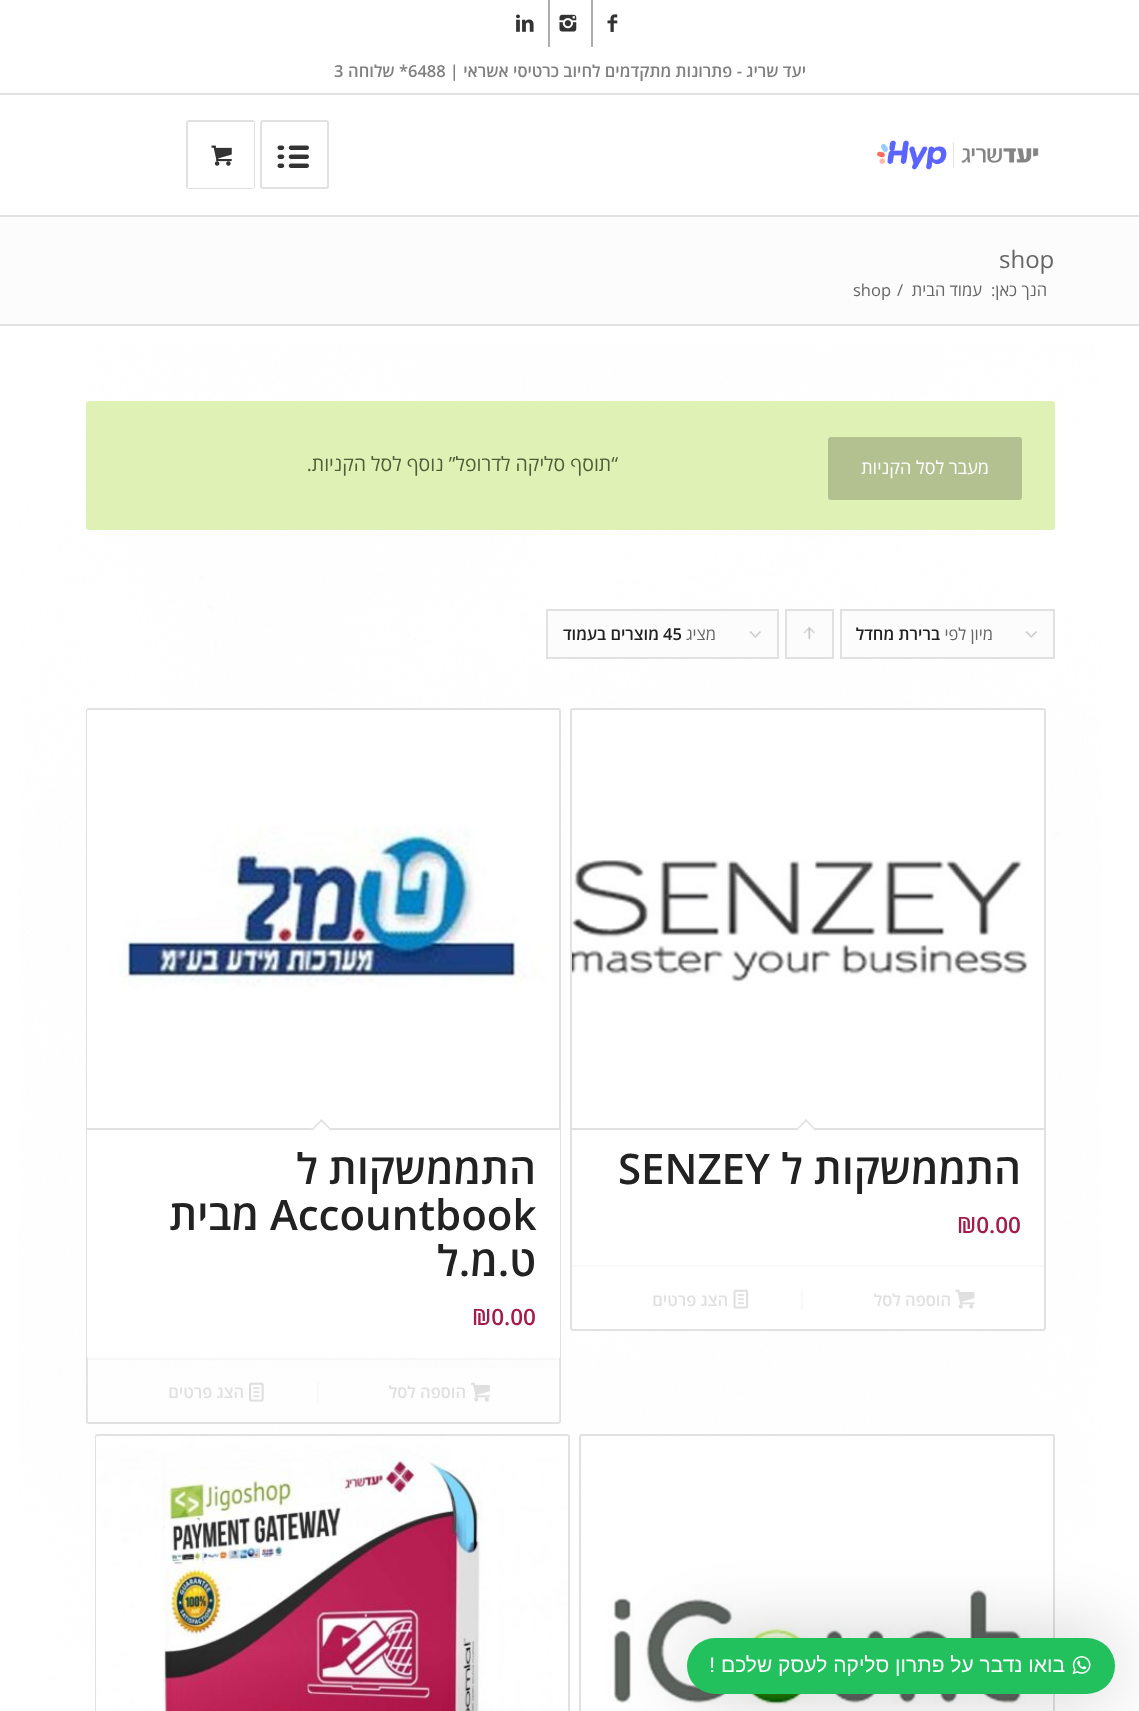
async function draw(canvas) {
  canvas.width = 1139
  canvas.height = 1711
  const ctx = canvas.getContext('2d')
  ctx.miterLimit = 4
  ctx.fontKerning = 'normal'
  async function loadImage(src) {
    const img = new Image()
    img.src = src
    await img.decode()
    return img
  }

  ctx.fillStyle = '#fff'
  ctx.fillRect(0, 0, 1139, 1711)
  ctx.fillStyle = '#e1e1e1'
  ctx.fillRect(0, 93, 1139, 2)
  ctx.drawImage(await loadImage('image0.png'), 607, 14, 11, 18)
  ctx.fillStyle = '#adadad'
  ctx.fillRect(591, 0, 2, 47)
  ctx.drawImage(await loadImage('image1.png'), 559, 14, 18, 18)
  ctx.fillRect(548, 0, 2, 47)
  ctx.drawImage(await loadImage('image2.png'), 516, 14, 18, 18)
  ctx.direction = 'rtl'
  ctx.font = '600 16.5px Open Sans'
  ctx.fillStyle = '#808080'
  ctx.fillText('יעד שריג - פתרונות מתקדמים לחיוב כרטיסי אשראי |', 806, 77)
  ctx.direction = 'ltr'
  ctx.fillText('6488', 408, 77)
  ctx.direction = 'rtl'
  ctx.fillText('* שלוחה', 408, 77)
  ctx.direction = 'ltr'
  ctx.fillText('3', 334, 77)
  ctx.fillStyle = '#e1e1e1'
  ctx.fillRect(0, 215, 1139, 2)
  ctx.drawImage(await loadImage('image3.png'), 877, 140, 162, 30)
  ctx.beginPath()
  ctx.roundRect(261, 121, 67, 67, 2)
  ctx.strokeStyle = '#e1e1e1'
  ctx.lineWidth = 2
  ctx.stroke()
  ctx.drawImage(await loadImage('image4.png'), 277, 145, 32, 23)
  ctx.beginPath()
  ctx.roundRect(187, 121, 67, 67, 2)
  ctx.stroke()
  ctx.fillStyle = '#fff'
  ctx.fillRect(188, 122, 66, 66)
  ctx.drawImage(await loadImage('image5.png'), 211, 145, 21, 21)
  ctx.fillStyle = '#fcfcfc'
  ctx.fillRect(0, 217, 1139, 107)
  ctx.font = '24px Open Sans'
  ctx.fillStyle = '#666'
  ctx.fillText('shop', 999, 268)
  ctx.direction = 'rtl'
  ctx.font = '16.5px Open Sans'
  ctx.fillText('הנך כאן:', 1047, 296)
  ctx.fillText('עמוד הבית', 982, 296)
  ctx.direction = 'ltr'
  ctx.fillText('/', 897, 296)
  ctx.fillText('shop', 853, 296)
  ctx.drawImage(await loadImage('image6.png'), 19, 342, 1082, 1351)
  ctx.fillStyle = '#e1e1e1'
  ctx.fillRect(0, 324, 1139, 2)
  ctx.fillStyle = '#e0f1b5'
  ctx.beginPath()
  ctx.roundRect(86, 401, 969, 129, 3)
  ctx.fill()
  ctx.fillStyle = '#b3c191'
  ctx.beginPath()
  ctx.roundRect(828, 437, 194, 63, 3)
  ctx.fill()
  ctx.direction = 'rtl'
  ctx.font = '18px Open Sans'
  ctx.fillStyle = '#fff'
  ctx.fillText('מעבר לסל הקניות', 989, 474)
  ctx.font = '19.5px Open Sans'
  ctx.fillStyle = '#4f5f39'
  ctx.fillText('“תוסף סליקה לדרופל” נוסף לסל הקניות.', 618, 471)
  ctx.fillStyle = '#fcfcfc'
  ctx.fillRect(842, 611, 211, 46)
  ctx.drawImage(await loadImage('image7.png'), 1025, 631, 12, 7)
  ctx.strokeRect(841, 610, 213, 48)
  ctx.font = '16.5px Open Sans'
  ctx.fillStyle = '#666'
  ctx.fillText('מיון לפי', 993, 640)
  ctx.font = '600 16.5px Open Sans'
  ctx.fillStyle = '#222'
  ctx.fillText('ברירת מחדל', 940, 640)
  ctx.fillStyle = '#fcfcfc'
  ctx.fillRect(787, 611, 45, 46)
  ctx.drawImage(await loadImage('image8.png'), 803, 626, 12, 14)
  ctx.strokeRect(786, 610, 47, 48)
  ctx.fillRect(548, 611, 229, 46)
  ctx.drawImage(await loadImage('image7.png'), 749, 631, 12, 7)
  ctx.strokeRect(547, 610, 231, 48)
  ctx.font = '16.5px Open Sans'
  ctx.fillStyle = '#666'
  ctx.fillText('מציג', 716, 640)
  ctx.direction = 'ltr'
  ctx.font = '600 16.5px Open Sans'
  ctx.fillStyle = '#222'
  ctx.fillText('45', 663, 640)
  ctx.direction = 'rtl'
  ctx.fillText('מוצרים בעמוד', 659, 640)
  ctx.fillStyle = '#fff'
  ctx.beginPath()
  ctx.roundRect(571, 709, 474, 621, 2)
  ctx.fill()
  ctx.stroke()
  ctx.drawImage(await loadImage('image9.png'), 571, 710, 457, 274)
  ctx.fillStyle = '#e1e1e1'
  ctx.fillRect(572, 1128, 472, 2)
  ctx.fillStyle = '#fff'
  ctx.beginPath()
  ctx.moveTo(806, 1119)
  ctx.lineTo(816.5, 1130)
  ctx.lineTo(806, 1140.5)
  ctx.lineTo(795.5, 1130)
  ctx.closePath()
  ctx.fill()
  ctx.fillStyle = '#e1e1e1'
  ctx.beginPath()
  ctx.moveTo(806, 1119)
  ctx.lineTo(816.5, 1130)
  ctx.lineTo(815.5, 1131)
  ctx.lineTo(805, 1120.5)
  ctx.closePath()
  ctx.fill()
  ctx.beginPath()
  ctx.moveTo(806, 1119)
  ctx.lineTo(807, 1120.5)
  ctx.lineTo(796.5, 1131)
  ctx.lineTo(795.5, 1130)
  ctx.closePath()
  ctx.fill()
  ctx.font = '600 42px Open Sans'
  ctx.fillStyle = '#222'
  ctx.fillText('התממשקות ל', 1021, 1184)
  ctx.direction = 'ltr'
  ctx.fillText('SENZEY', 618, 1184)
  ctx.font = '600 22.5px Open Sans'
  ctx.fillStyle = '#a41d4a'
  ctx.fillText('₪0.00', 957, 1233)
  ctx.fillStyle = '#f9f9f9'
  ctx.fillRect(572, 1265, 472, 2)
  ctx.drawImage(await loadImage('image10.png'), 955, 1289, 20, 20)
  ctx.direction = 'rtl'
  ctx.font = '600 16.5px Open Sans'
  ctx.fillStyle = '#e0e0e0'
  ctx.fillText('הוספה לסל', 951, 1306)
  ctx.fillStyle = '#f9f9f9'
  ctx.fillRect(801, 1289, 2, 21)
  ctx.drawImage(await loadImage('image11.png'), 733, 1289, 16, 20)
  ctx.fillStyle = '#e0e0e0'
  ctx.fillText('הצג פרטים', 728, 1306)
  ctx.fillStyle = '#fff'
  ctx.beginPath()
  ctx.roundRect(86, 708, 475, 716, 3)
  ctx.fill()
  ctx.drawImage(await loadImage('image12.png'), 97, 1357, 462, 11)
  ctx.beginPath()
  ctx.roundRect(87, 709, 473, 714, 2)
  ctx.stroke()
  ctx.drawImage(await loadImage('image13.png'), 87, 710, 472, 418)
  ctx.beginPath()
  ctx.roundRect(87, 1128, 473, 230, [0, 0, 1.5, 1.5])
  ctx.fill()
  ctx.fillStyle = '#e1e1e1'
  ctx.fillRect(87, 1128, 473, 2)
  ctx.fillStyle = '#fff'
  ctx.beginPath()
  ctx.moveTo(321.5, 1119)
  ctx.lineTo(332, 1130)
  ctx.lineTo(321.5, 1140.5)
  ctx.lineTo(311, 1130)
  ctx.closePath()
  ctx.fill()
  ctx.fillStyle = '#e1e1e1'
  ctx.beginPath()
  ctx.moveTo(321.5, 1119)
  ctx.lineTo(332, 1130)
  ctx.lineTo(331, 1131)
  ctx.lineTo(320.5, 1120.5)
  ctx.closePath()
  ctx.fill()
  ctx.beginPath()
  ctx.moveTo(321.5, 1119)
  ctx.lineTo(322.5, 1120.5)
  ctx.lineTo(312, 1131)
  ctx.lineTo(311, 1130)
  ctx.closePath()
  ctx.fill()
  ctx.font = '600 42px Open Sans'
  ctx.fillStyle = '#222'
  ctx.fillText('התממשקות ל', 536, 1184)
  ctx.direction = 'ltr'
  ctx.fillText('Accountbook', 270, 1230)
  ctx.direction = 'rtl'
  ctx.fillText('מבית', 259, 1230)
  ctx.fillText('ט.מ.ל', 536, 1276)
  ctx.direction = 'ltr'
  ctx.font = '600 22.5px Open Sans'
  ctx.fillStyle = '#a41d4a'
  ctx.fillText('₪0.00', 472, 1325)
  ctx.fillStyle = '#fcfcfc33'
  ctx.beginPath()
  ctx.roundRect(87, 1358, 473, 64, [0, 0, 1.5, 1.5])
  ctx.fill()
  ctx.fillStyle = '#e1e1e133'
  ctx.fillRect(87, 1358, 473, 2)
  ctx.drawImage(await loadImage('image14.png'), 471, 1382, 19, 20)
  ctx.direction = 'rtl'
  ctx.font = '600 16.5px Open Sans'
  ctx.fillStyle = '#e0e0e0'
  ctx.fillText('הוספה לסל', 466, 1398)
  ctx.fillStyle = '#f9f9f9'
  ctx.fillRect(317, 1382, 2, 21)
  ctx.drawImage(await loadImage('image15.png'), 249, 1382, 15, 20)
  ctx.fillStyle = '#e0e0e0'
  ctx.fillText('הצג פרטים', 244, 1398)
  ctx.fillStyle = '#fff'
  ctx.beginPath()
  ctx.roundRect(580, 1435, 474, 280, 2)
  ctx.fill()
  ctx.stroke()
  ctx.drawImage(await loadImage('image16.png'), 581, 1436, 445, 269)
  ctx.beginPath()
  ctx.roundRect(96, 1435, 473, 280, 2)
  ctx.stroke()
  ctx.drawImage(await loadImage('image17.png'), 96, 1436, 472, 275)
  ctx.fillStyle = '#00000033'
  ctx.filter = 'blur(37.5px)'
  ctx.beginPath()
  ctx.roundRect(687, 1638, 428, 56, 28)
  ctx.fill()
  ctx.filter = 'none'
  ctx.fillStyle = '#22c15e'
  ctx.beginPath()
  ctx.roundRect(687, 1638, 428, 56, 28)
  ctx.fill()
  ctx.drawImage(await loadImage('image18.png'), 1072, 1656, 19, 19)
  ctx.font = '21px Liberation Sans'
  ctx.fillStyle = '#fff'
  ctx.fillText('בואו נדבר על פתרון סליקה לעסק שלכם !', 1065, 1672)
}

draw(document.querySelector('canvas'))
